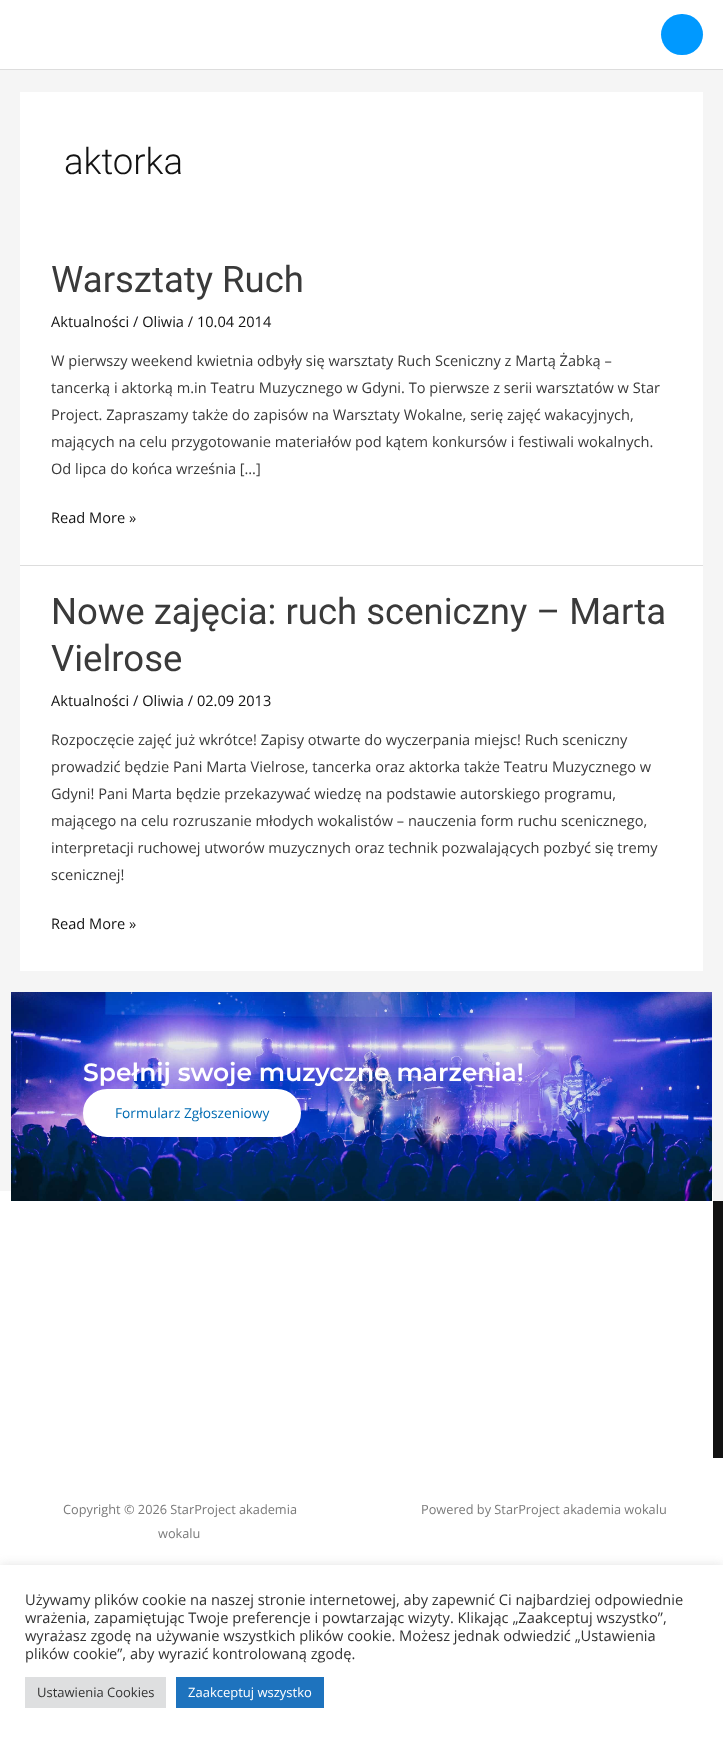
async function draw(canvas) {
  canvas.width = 723
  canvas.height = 1738
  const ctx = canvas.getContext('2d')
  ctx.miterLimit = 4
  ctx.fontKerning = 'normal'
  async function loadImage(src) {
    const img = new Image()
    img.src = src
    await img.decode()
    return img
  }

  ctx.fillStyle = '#f5f5f5'
  ctx.fillRect(0, 0, 723, 1738)
  ctx.fillStyle = '#fff'
  ctx.fillRect(0, 0, 723, 69)
  ctx.fillStyle = '#ddd'
  ctx.fillRect(0, 69, 723, 1)
  ctx.fillStyle = '#09f'
  ctx.beginPath()
  ctx.roundRect(661, 14, 42, 41, 20.5)
  ctx.fill()
  ctx.fillStyle = '#fff'
  ctx.fillRect(20, 92, 683, 473)
  ctx.font = '300 36.5px Roboto'
  ctx.fillStyle = '#121212'
  ctx.fillText('aktorka', 64, 174)
  ctx.fillStyle = '#ddd'
  ctx.fillRect(20, 565, 683, 1)
  ctx.font = '36.5px Roboto'
  ctx.fillStyle = '#3a3a3a'
  ctx.fillText('Warsztaty Ruch', 51, 292)
  ctx.font = '14.6px Open Sans'
  ctx.fillStyle = '#121212'
  ctx.fillText('Aktualności / Oliwia / 10.04 2014', 51, 327)
  ctx.fillStyle = '#3a3a3a'
  ctx.fillText('W pierwszy weekend kwietnia odbyły się warsztaty Ruch Sceniczny z Martą Żabką –', 51, 366)
  ctx.fillText('tancerką i aktorką m.in Teatru Muzycznego w Gdyni. To pierwsze z serii warsztatów w Star', 51, 393)
  ctx.fillText('Project. Zapraszamy także do zapisów na Warsztaty Wokalne, serię zajęć wakacyjnych,', 51, 420)
  ctx.fillText('mających na celu przygotowanie materiałów pod kątem konkursów i festiwali wokalnych.', 51, 447)
  ctx.fillText('Od lipca do końca września […]', 51, 474)
  ctx.fillStyle = '#121212'
  ctx.fillText('Read More »', 51, 523)
  ctx.fillStyle = '#fff'
  ctx.fillRect(20, 566, 683, 405)
  ctx.font = '36.5px Roboto'
  ctx.fillStyle = '#3a3a3a'
  ctx.fillText('Nowe zajęcia: ruch sceniczny – Marta', 51, 624)
  ctx.fillText('Vielrose', 51, 671)
  ctx.font = '14.6px Open Sans'
  ctx.fillStyle = '#121212'
  ctx.fillText('Aktualności / Oliwia / 02.09 2013', 51, 706)
  ctx.fillStyle = '#3a3a3a'
  ctx.fillText('Rozpoczęcie zajęć już wkrótce! Zapisy otwarte do wyczerpania miejsc! Ruch sceniczny', 51, 745)
  ctx.fillText('prowadzić będzie Pani Marta Vielrose, tancerka oraz aktorka także Teatru Muzycznego w', 51, 772)
  ctx.fillText('Gdyni! Pani Marta będzie przekazywać wiedzę na podstawie autorskiego programu,', 51, 799)
  ctx.fillText('mającego na celu rozruszanie młodych wokalistów – nauczenia form ruchu scenicznego,', 51, 826)
  ctx.fillText('interpretacji ruchowej utworów muzycznych oraz technik pozwalających pozbyć się tremy', 51, 853)
  ctx.fillText('scenicznej!', 51, 880)
  ctx.fillStyle = '#121212'
  ctx.fillText('Read More »', 51, 929)
  ctx.fillStyle = '#fff'
  ctx.fillRect(0, 1191, 713, 267)
  ctx.drawImage(await loadImage('image0.png'), 11, 992, 701, 209)
  ctx.font = '600 25px Montserrat'
  ctx.fillText('Spełnij swoje muzyczne marzenia!', 83, 1081)
  ctx.beginPath()
  ctx.roundRect(84, 1090, 216, 46, 23)
  ctx.fill()
  ctx.strokeStyle = '#fff'
  ctx.lineWidth = 2
  ctx.stroke()
  ctx.font = '13.75px Open Sans'
  ctx.fillStyle = '#006bb2'
  ctx.fillText('Formularz Zgłoszeniowy', 115, 1118)
  ctx.fillStyle = '#121212'
  ctx.fillRect(713, 1201, 10, 257)
  ctx.fillStyle = '#fff'
  ctx.fillRect(0, 1458, 723, 107)
  ctx.font = '12.75px Open Sans'
  ctx.fillStyle = '#7a7a7a'
  ctx.fillText('Copyright © 2026 StarProject akademia', 63, 1514)
  ctx.fillText('wokalu', 158, 1538)
  ctx.fillText('Powered by StarProject akademia wokalu', 421, 1514)
  ctx.fillStyle = '#acabab4d'
  ctx.filter = 'blur(5px)'
  ctx.beginPath()
  ctx.rect(0, 1564, 723, 173)
  ctx.fill()
  ctx.filter = 'none'
  ctx.fillStyle = '#fff'
  ctx.fillRect(0, 1565, 723, 173)
  ctx.font = '14.65px Open Sans'
  ctx.fillStyle = '#333'
  ctx.fillText('Używamy plików cookie na naszej stronie internetowej, aby zapewnić Ci najbardziej odpowiednie', 25, 1605)
  ctx.fillText('wrażenia, zapamiętując Twoje preferencje i powtarzając wizyty. Klikając „Zaakceptuj wszystko”,', 25, 1623)
  ctx.fillText('wyrażasz zgodę na używanie wszystkich plików cookie. Możesz jednak odwiedzić „Ustawienia', 25, 1641)
  ctx.fillText('plików cookie”, aby wyrazić kontrolowaną zgodę.', 25, 1659)
  ctx.fillStyle = '#dedfe0'
  ctx.fillRect(25, 1677, 141, 31)
  ctx.font = '13px Open Sans'
  ctx.fillStyle = '#333'
  ctx.fillText('Ustawienia Cookies', 37, 1697)
  ctx.fillStyle = '#1e73be'
  ctx.fillRect(176, 1677, 148, 31)
  ctx.fillStyle = '#fff'
  ctx.fillText('Zaakceptuj wszystko', 188, 1697)
}

draw(document.querySelector('canvas'))
